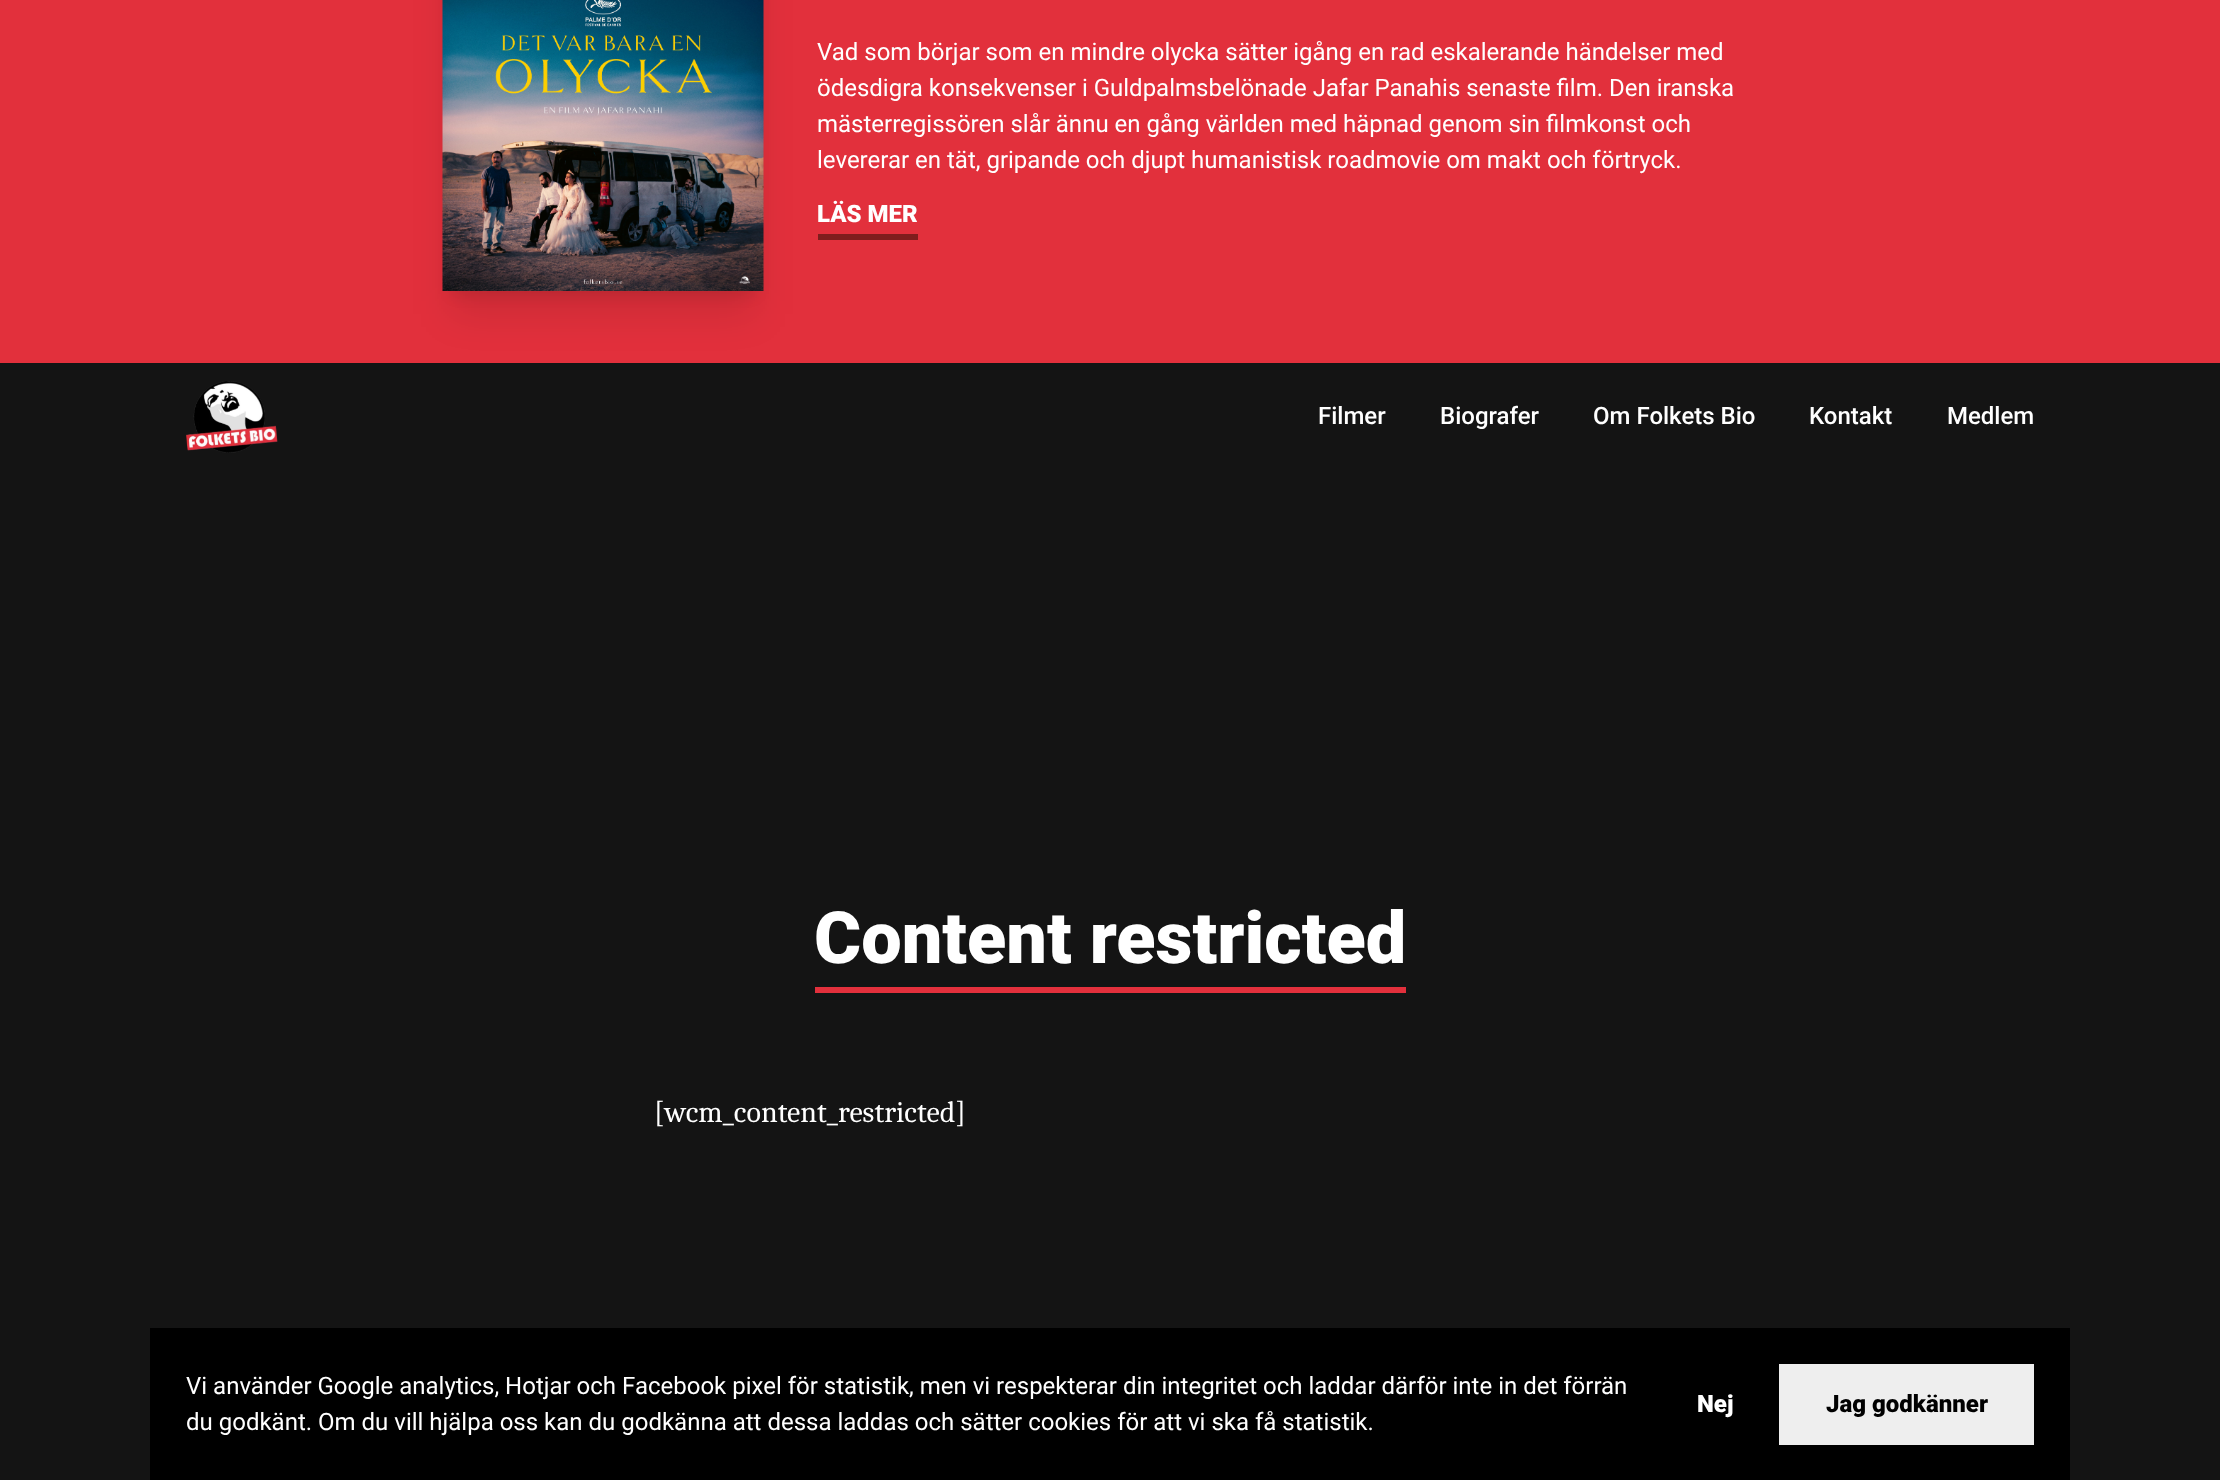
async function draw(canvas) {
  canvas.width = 2220
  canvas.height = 1480
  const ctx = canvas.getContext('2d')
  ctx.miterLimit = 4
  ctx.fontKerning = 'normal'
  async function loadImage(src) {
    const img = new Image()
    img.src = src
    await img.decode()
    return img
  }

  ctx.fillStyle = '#141414'
  ctx.fillRect(0, 0, 2220, 1480)
  ctx.fillStyle = '#e2303c'
  ctx.fillRect(0, 0, 2220, 363)
  ctx.fillStyle = '#0000001a'
  ctx.filter = 'blur(7.5px)'
  ctx.beginPath()
  ctx.rect(452, -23, 303, 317)
  ctx.fill()
  ctx.filter = 'none'
  ctx.filter = 'blur(19px)'
  ctx.beginPath()
  ctx.rect(450, -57, 306, 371)
  ctx.fill()
  ctx.filter = 'none'
  ctx.drawImage(await loadImage('image0.png'), 442, 0, 322, 291)
  ctx.font = '24px Roboto'
  ctx.fillStyle = '#fff'
  ctx.fillText('Vad som börjar som en mindre olycka sätter igång en rad eskalerande händelser med', 817, 60)
  ctx.fillText('ödesdigra konsekvenser i Guldpalmsbelönade Jafar Panahis senaste film. Den iranska', 817, 96)
  ctx.fillText('mästerregissören slår ännu en gång världen med häpnad genom sin filmkonst och', 817, 132)
  ctx.fillText('levererar en tät, gripande och djupt humanistisk roadmovie om makt och förtryck.', 817, 168)
  ctx.font = '900 24px Roboto'
  ctx.fillText('LÄS MER', 817, 222)
  ctx.fillStyle = '#7f1d1d'
  ctx.fillRect(818, 234, 100, 6)
  ctx.drawImage(await loadImage('image1.png'), 186, 381, 92, 72)
  ctx.font = '500 24px Roboto'
  ctx.fillStyle = '#fff'
  ctx.fillText('Filmer', 1318, 424)
  ctx.fillText('Biografer', 1440, 424)
  ctx.fillText('Om Folkets Bio', 1593, 424)
  ctx.fillText('Kontakt', 1809, 424)
  ctx.fillText('Medlem', 1947, 424)
  ctx.font = '900 72px Roboto'
  ctx.fillText('Content restricted', 814, 963)
  ctx.fillStyle = '#e2303c'
  ctx.fillRect(815, 987, 591, 6)
  ctx.font = '30px Caladea'
  ctx.fillStyle = '#fff'
  ctx.fillText('[wcm_content_restricted]', 654, 1122)
  ctx.fillStyle = '#000'
  ctx.fillRect(150, 1328, 1920, 152)
  ctx.font = '24px Roboto'
  ctx.fillStyle = '#fff'
  ctx.fillText('Vi använder Google analytics, Hotjar och Facebook pixel för statistik, men vi respekterar din integritet och laddar därför inte in det förrän', 186, 1394)
  ctx.fillText('du godkänt. Om du vill hjälpa oss kan du godkänna att dessa laddas och sätter cookies för att vi ska få statistik.', 186, 1430)
  ctx.font = '900 24px Roboto'
  ctx.fillText('Nej', 1697, 1412)
  ctx.fillStyle = '#eee'
  ctx.fillRect(1779, 1364, 255, 81)
  ctx.fillStyle = '#000'
  ctx.fillText('Jag godkänner', 1826, 1412)
}

draw(document.querySelector('canvas'))
